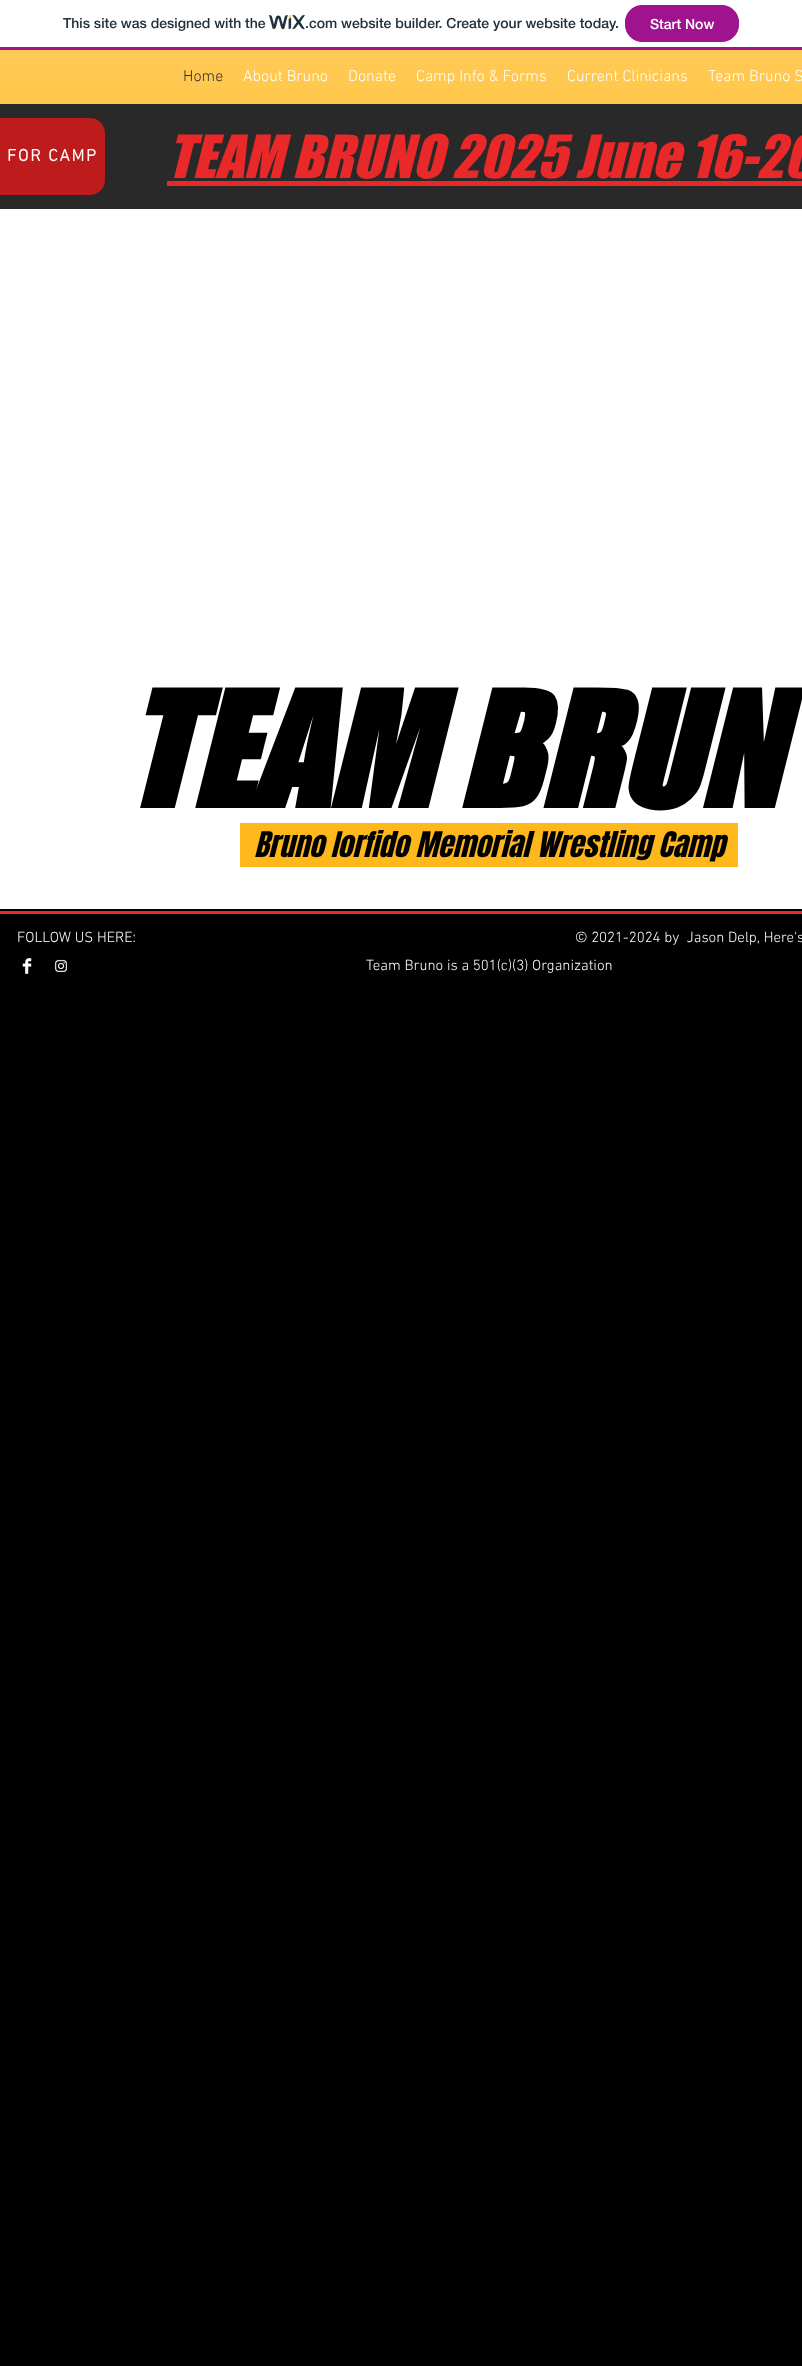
async function draw(canvas) {
  canvas.width = 802
  canvas.height = 2366
  const ctx = canvas.getContext('2d')
  ctx.miterLimit = 4
  ctx.fontKerning = 'normal'
  async function loadImage(src) {
    const img = new Image()
    img.src = src
    await img.decode()
    return img
  }

  ctx.fillStyle = '#fff'
  ctx.fillRect(0, 0, 802, 2366)
  ctx.fillStyle = '#a0138e'
  ctx.fillRect(0, 47, 802, 3)
  ctx.font = '500 14px "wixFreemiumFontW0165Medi"'
  ctx.fillStyle = '#20303c'
  ctx.fillText('This site was designed with the', 63, 28)
  ctx.drawImage(await loadImage('image0.png'), 269, 15, 36, 15)
  ctx.fillText('.com website builder. Create your website today.', 305, 28)
  ctx.fillStyle = '#a0138e'
  ctx.beginPath()
  ctx.roundRect(625.5, 5.5, 113, 36, 16.5)
  ctx.fill()
  ctx.strokeStyle = '#a0138e'
  ctx.stroke()
  ctx.fillStyle = '#fff'
  ctx.fillText('Start Now', 650, 29)
  ctx.fillStyle = '#ffb81c'
  ctx.fillRect(0, 50, 802, 54)
  ctx.drawImage(await loadImage('image1.png'), 0, 50, 802, 54)
  ctx.font = '300 16px "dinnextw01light"'
  ctx.fillStyle = '#333'
  ctx.fillText('Home', 183, 81)
  ctx.fillStyle = '#fff'
  ctx.fillText('About Bruno', 243, 81)
  ctx.fillText('Donate', 348, 81)
  ctx.fillText('Camp Info & Forms', 416, 81)
  ctx.fillText('Current Clinicians', 567, 81)
  ctx.fillText('Team Bruno S', 708, 81)
  ctx.fillStyle = '#292929'
  ctx.fillRect(0, 104, 802, 105)
  ctx.fillStyle = '#be1c1c'
  ctx.beginPath()
  ctx.roundRect(0, 118, 105, 77, [0, 15, 15, 0])
  ctx.fill()
  ctx.letterSpacing = '1.75px'
  ctx.font = 'bold 17px "dinnextw01light"'
  ctx.fillStyle = '#fff'
  ctx.fillText('FOR CAMP', 7, 161)
  ctx.letterSpacing = '0px'
  ctx.font = 'italic 55px "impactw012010"'
  ctx.fillStyle = '#e92929'
  ctx.fillText('TEAM BRUNO 2025 June 16-20', 167, 178)
  ctx.fillRect(167, 181, 635, 5)
  ctx.font = 'italic bold 147px "impactw012010"'
  ctx.fillStyle = '#000'
  ctx.fillText('TEAM BRUN', 122, 808)
  ctx.fillStyle = '#ffb81c'
  ctx.fillRect(240, 823, 498, 44)
  ctx.font = 'italic 30px Anton'
  ctx.fillStyle = '#000'
  ctx.fillText('Bruno Iorfido Memorial Wrestling Camp', 254, 857)
  ctx.fillRect(0, 909, 802, 1457)
  ctx.fillStyle = '#e92929'
  ctx.fillRect(0, 911, 802, 3)
  ctx.font = '300 15px "dinnextw01light"'
  ctx.fillStyle = '#fff'
  ctx.fillText('FOLLOW US HERE:', 17, 942)
  ctx.fillText('© 2021-2024 by  Jason Delp, Here\'s', 575, 942)
  ctx.drawImage(await loadImage('image2.png'), 22, 958, 10, 16)
  ctx.drawImage(await loadImage('image3.png'), 54, 959, 13, 13)
  ctx.fillText('Team Bruno is a 501(c)(3) Organization', 366, 970)
}

draw(document.querySelector('canvas'))
